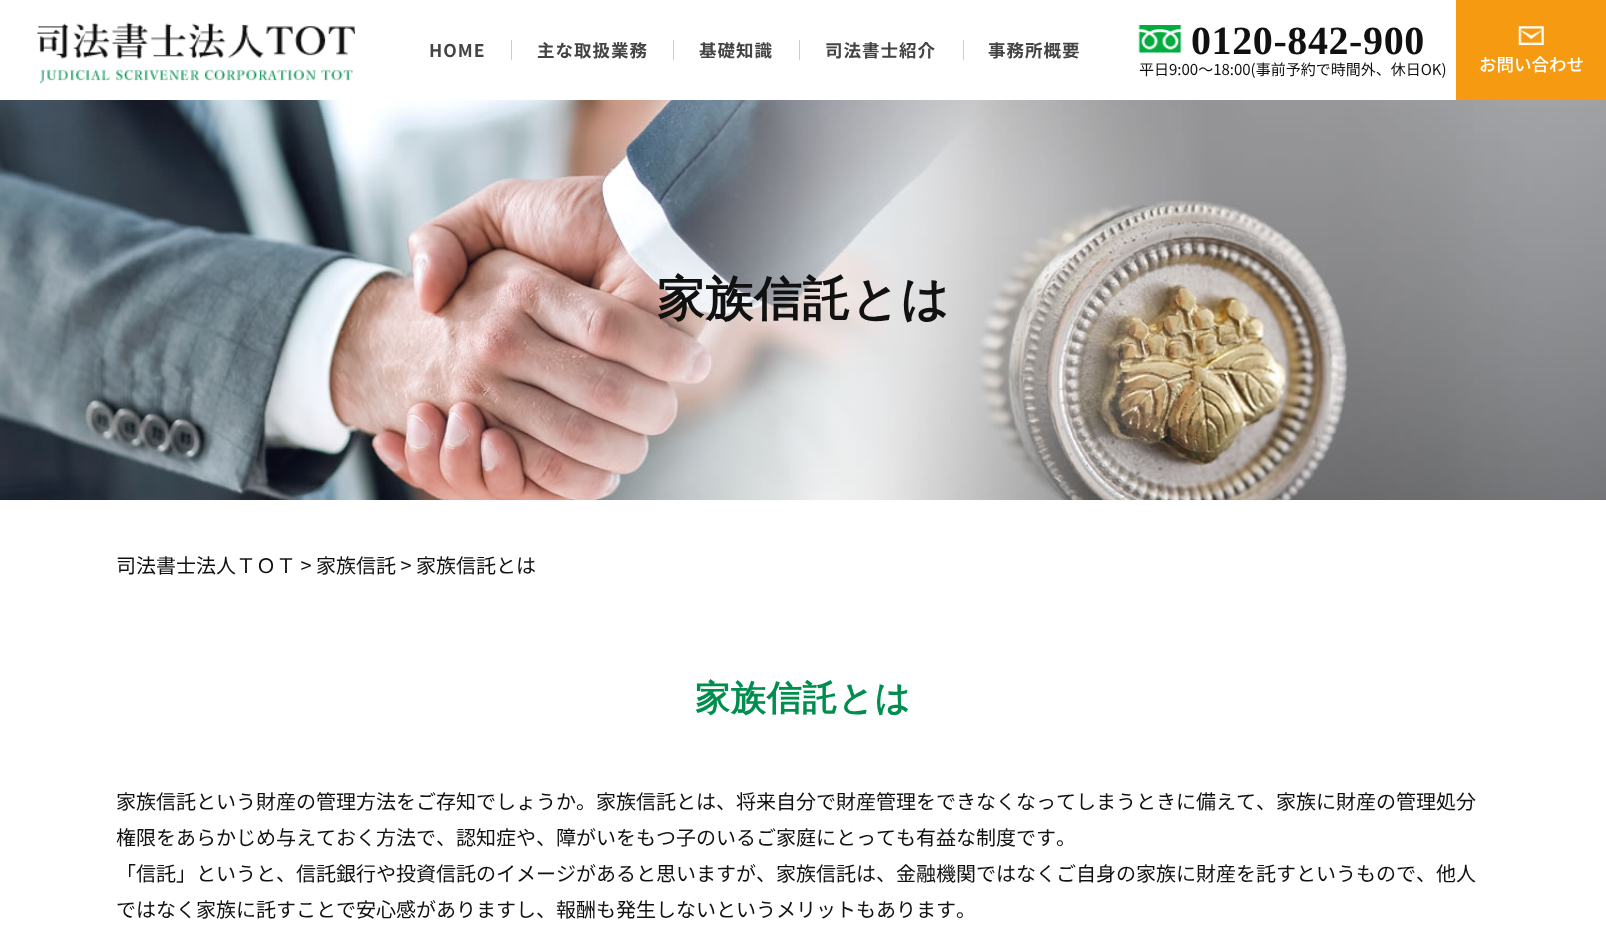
async function draw(canvas) {
	canvas.width = 1606;
	canvas.height = 928;
	const c = canvas.getContext('2d');
	c.miterLimit = 4;
	c.fontKerning = 'none';
	async function loadImage(src) {
		const img = new Image();
		img.src = src;
		await img.decode();
		return img;
	}

	c.fillStyle = '#fff';
	c.fillRect(0, 0, 1606, 928);
	c.letterSpacing = '1px';
	c.font = 'bold 17.5px Noto Sans JP';
	c.fillStyle = '#444';
	c.fillText('HOME', 429, 57);
	c.fillStyle = '#ccc';
	c.fillRect(511, 40, 1, 20);
	c.fillStyle = '#444';
	c.fillText('主な取扱業務', 537, 57);
	c.fillStyle = '#ccc';
	c.fillRect(673, 40, 1, 20);
	c.fillStyle = '#444';
	c.fillText('基礎知識', 699, 57);
	c.fillStyle = '#ccc';
	c.fillRect(799, 40, 1, 20);
	c.fillStyle = '#444';
	c.fillText('司法書士紹介', 825, 57);
	c.fillStyle = '#ccc';
	c.fillRect(963, 40, 1, 20);
	c.fillStyle = '#444';
	c.fillText('事務所概要', 988, 57);
	c.drawImage(await loadImage('img1.png'), 37, 22, 318, 62);
	c.drawImage(await loadImage('img2.png'), 1138, 25, 44, 28);
	c.letterSpacing = '0.6px';
	c.font = 'bold 40px Liberation Serif';
	c.fillStyle = '#111';
	c.fillText('0120-842-900', 1191, 54);
	c.letterSpacing = '0px';
	c.font = '15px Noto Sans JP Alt';
	c.fillText('平日9:00～18:00(事前予約で時間外、休日OK)', 1139, 75);
	c.fillStyle = '#f69b11';
	c.fillRect(1456, 0, 150, 100);
	c.drawImage(await loadImage('img3.png'), 1518, 26, 26, 19);
	c.font = '500 17.5px Noto Sans JP';
	c.fillStyle = '#fff';
	c.fillText('お問い合わせ', 1479, 71);
	c.drawImage(await loadImage('img4.png'), 0, 100, 1606, 400);
	c.letterSpacing = '1px';
	c.font = 'bold 47.5px WenQuanYi Zen Hei';
	c.fillStyle = '#111';
	c.fillText('家族信託とは', 657, 315);
	c.letterSpacing = '0px';
	c.font = '20px Noto Sans JP';
	c.fillText('司法書士法人ＴＯＴ > 家族信託 > 家族信託とは', 116, 573);
	c.letterSpacing = '0.75px';
	c.font = 'bold 35px WenQuanYi Zen Hei';
	c.fillStyle = '#008e4f';
	c.fillText('家族信託とは', 695, 710);
	c.letterSpacing = '0px';
	c.font = '20px Noto Sans JP';
	c.fillStyle = '#111';
	for (const [text, x, y] of [
		['家族信託という財産の管理方法をご存知でしょうか。家族信託とは、将来自分で財産管理をできなくなってしまうときに備えて、家族に財産の管理処分', 116, 809],
		['権限をあらかじめ与えておく方法で、認知症や、障がいをもつ子のいるご家庭にと', 116, 845],
		['っても有益な制度です。', 856, 845],
		['「信託」というと、信託銀行や投資信託のイメージがあると思いますが、家族信託は、金融機関ではなくご自身の家族に財産を託すというもので、他人', 116, 881],
		['ではなく家族に託すことで安心感がありますし、報酬も発生しないというメリットもあります。', 116, 917],
	]) {
		c.fillText(text, x, y);
	}
}

draw(document.querySelector('canvas'));
